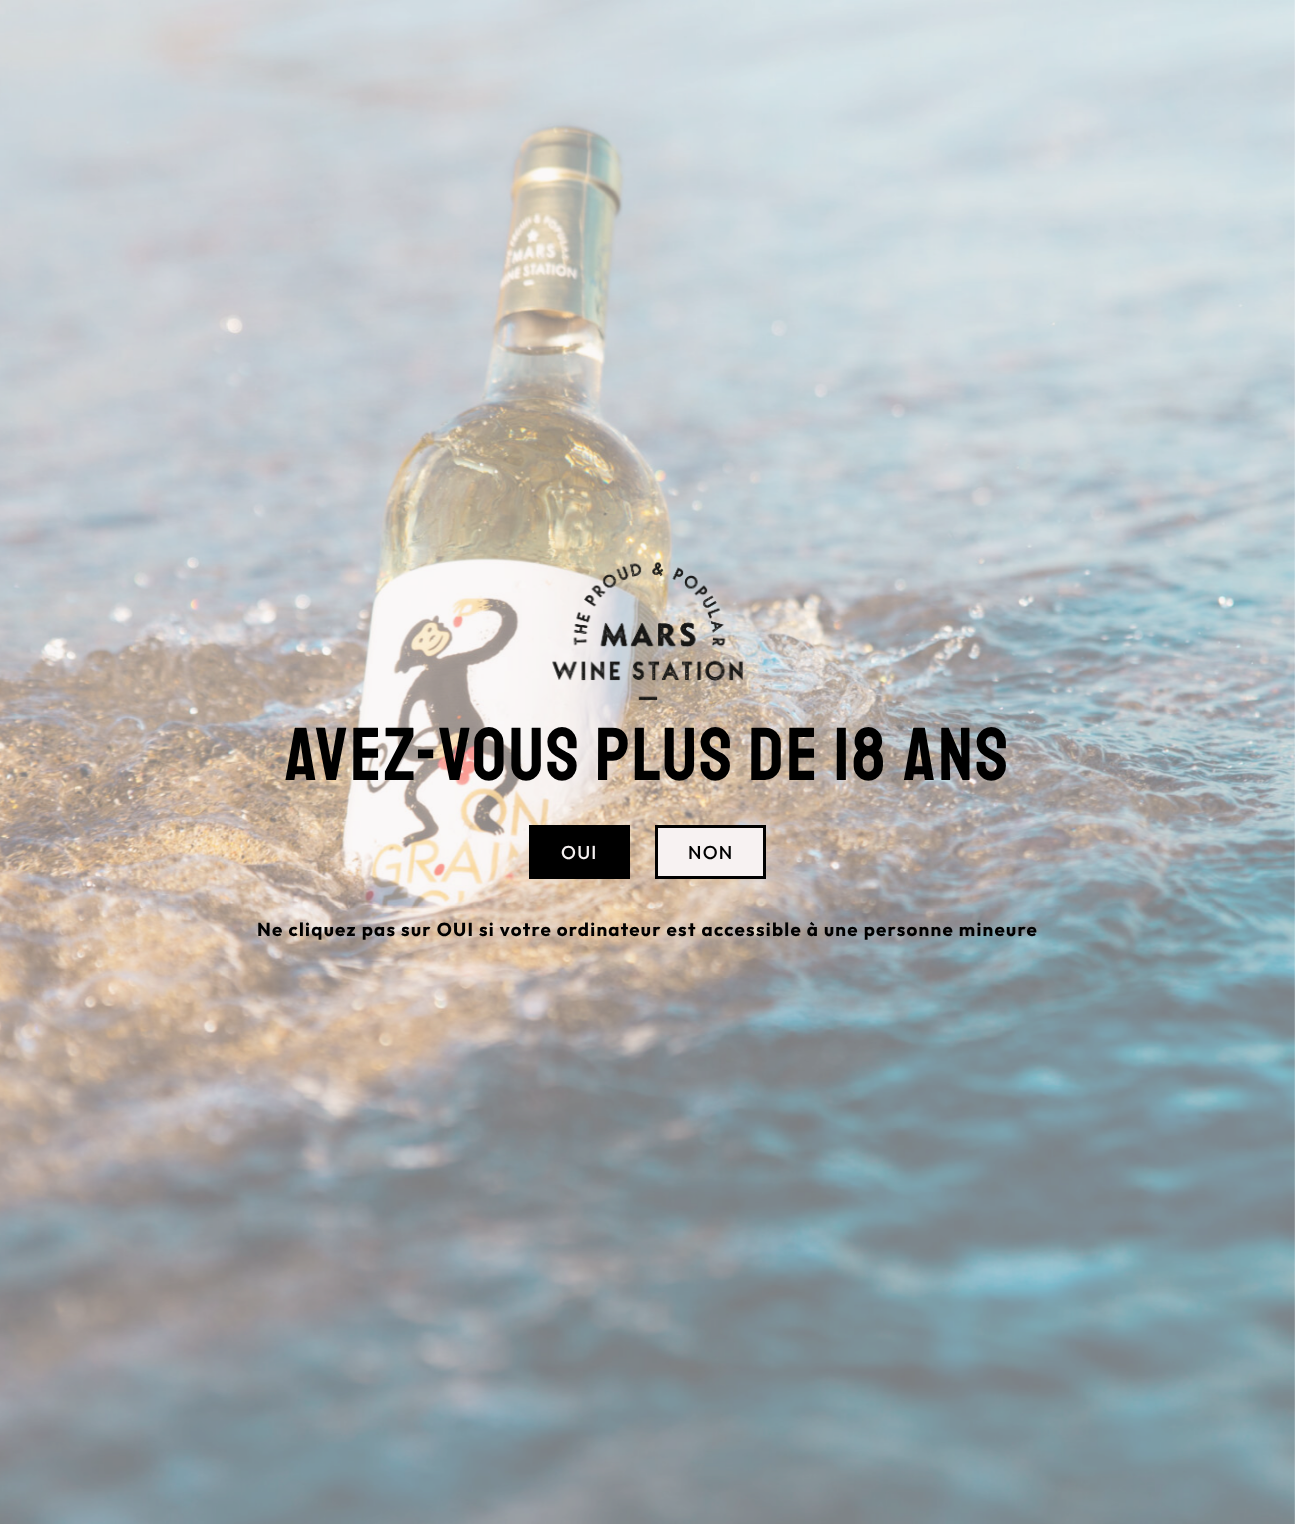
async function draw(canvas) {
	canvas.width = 1295;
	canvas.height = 1524;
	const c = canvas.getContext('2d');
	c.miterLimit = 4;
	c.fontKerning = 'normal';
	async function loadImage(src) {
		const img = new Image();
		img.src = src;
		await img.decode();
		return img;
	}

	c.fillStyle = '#fff';
	c.fillRect(0, 0, 1295, 1524);
	c.drawImage(await loadImage('img1.png'), 0, 0, 1295, 1524);
	c.drawImage(await loadImage('img2.png'), 552, 562, 191, 139);
	c.letterSpacing = '2.5px';
	c.font = '75px Staatliches';
	c.fillStyle = '#000';
	c.fillText('AVEZ-VOUS PLUS DE 18 ANS', 285, 780);
	c.fillRect(529, 825, 101, 54);
	c.letterSpacing = '1.25px';
	c.font = '500 18.75px Outfit';
	c.fillStyle = '#f7f2f2';
	c.fillText('OUI', 561, 859);
	c.beginPath();
	c.rect(656.5, 826.5, 108, 51);
	c.fill();
	c.strokeStyle = '#000';
	c.lineWidth = 3;
	c.stroke();
	c.fillStyle = '#000';
	c.fillText('NON', 688, 859);
	c.font = 'bold 18.75px Outfit';
	c.fillText('Ne cliquez pas sur OUI si votre ordinateur est accessible à une personne mineure', 257, 936);
}

draw(document.querySelector('canvas'));
